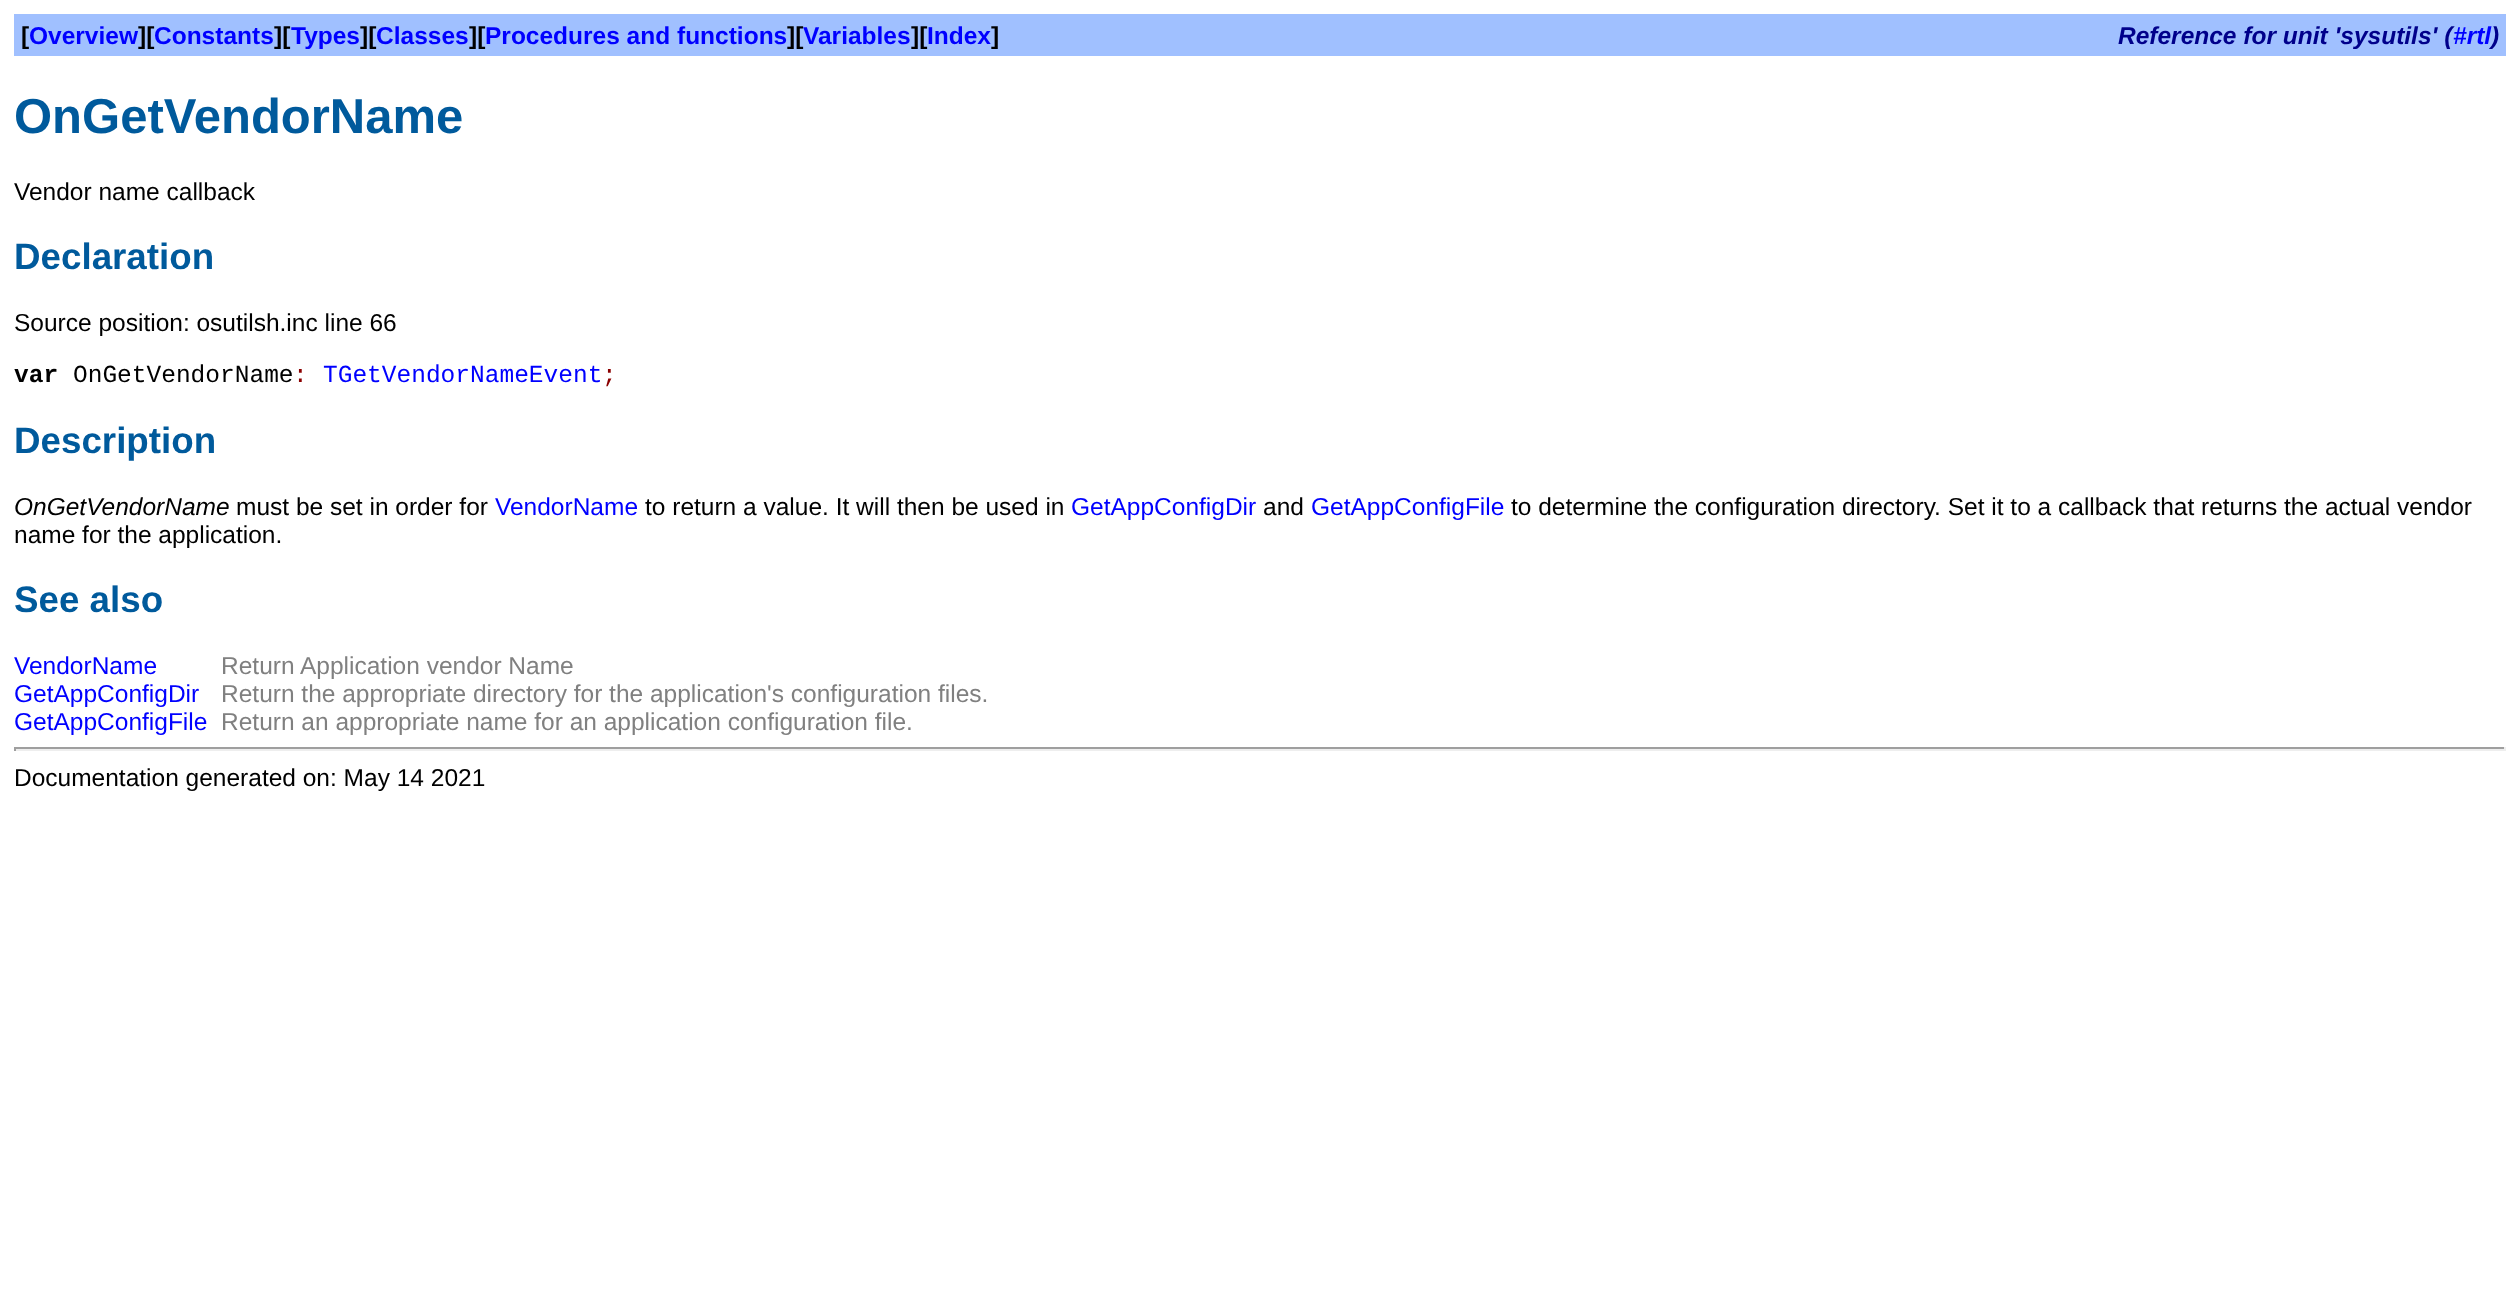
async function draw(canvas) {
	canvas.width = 2520;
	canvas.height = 1307;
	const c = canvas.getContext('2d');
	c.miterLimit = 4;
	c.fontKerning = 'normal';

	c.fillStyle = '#fff';
	c.fillRect(0, 0, 2520, 1307);
	c.fillStyle = '#a0c0ff';
	c.fillRect(14, 14, 2492, 42);
	c.font = 'bold 24.5px Liberation Sans';
	c.fillStyle = '#000';
	c.fillText('[', 21, 44);
	c.fillStyle = '#00f';
	c.fillText('Overview', 29, 44);
	c.fillStyle = '#000';
	c.fillText('][', 138, 44);
	c.fillStyle = '#00f';
	c.fillText('Constants', 154, 44);
	c.fillStyle = '#000';
	c.fillText('][', 274, 44);
	c.fillStyle = '#00f';
	c.fillText('Types', 291, 44);
	c.fillStyle = '#000';
	c.fillText('][', 360, 44);
	c.fillStyle = '#00f';
	c.fillText('Classes', 376, 44);
	c.fillStyle = '#000';
	c.fillText('][', 469, 44);
	c.fillStyle = '#00f';
	c.fillText('Procedures and functions', 485, 44);
	c.fillStyle = '#000';
	c.fillText('][', 787, 44);
	c.fillStyle = '#00f';
	c.fillText('Variables', 803, 44);
	c.fillStyle = '#000';
	c.fillText('][', 911, 44);
	c.fillStyle = '#00f';
	c.fillText('Index', 927, 44);
	c.fillStyle = '#000';
	c.fillText(']', 991, 44);
	c.font = 'italic bold 24.5px Liberation Sans';
	c.fillStyle = '#00008b';
	c.fillText('Reference for unit \'sysutils\' (', 2118, 44);
	c.fillStyle = '#00f';
	c.fillText('#rtl', 2453, 44);
	c.fillStyle = '#00008b';
	c.fillText(')', 2491, 44);
	c.font = 'bold 49px Liberation Sans';
	c.fillStyle = '#005a9c';
	c.fillText('OnGetVendorName', 14, 133);
	c.font = '24.5px Liberation Sans';
	c.fillStyle = '#000';
	c.fillText('Vendor name callback', 14, 200);
	c.font = 'bold 36.75px Liberation Sans';
	c.fillStyle = '#005a9c';
	c.fillText('Declaration', 14, 269);
	c.font = '24.5px Liberation Sans';
	c.fillStyle = '#000';
	c.fillText('Source position: osutilsh.inc line 66', 14, 331);
	c.font = 'bold 24.5px Liberation Mono';
	c.fillText('var', 14, 382);
	c.font = '24.5px Liberation Mono';
	c.fillText('OnGetVendorName', 73, 382);
	c.fillStyle = '#8b0000';
	c.fillText(':', 293, 382);
	c.fillStyle = '#00f';
	c.fillText('TGetVendorNameEvent', 323, 382);
	c.fillStyle = '#8b0000';
	c.fillText(';', 602, 382);
	c.font = 'bold 36.75px Liberation Sans';
	c.fillStyle = '#005a9c';
	c.fillText('Description', 14, 453);
	c.font = 'italic 24.5px Liberation Sans';
	c.fillStyle = '#000';
	c.fillText('OnGetVendorName', 14, 515);
	c.font = '24.5px Liberation Sans';
	c.fillText('must be set in order for', 236, 515);
	c.fillStyle = '#00f';
	c.fillText('VendorName', 495, 515);
	c.fillStyle = '#000';
	c.fillText('to return a value. It will then be used in', 645, 515);
	c.fillStyle = '#00f';
	c.fillText('GetAppConfigDir', 1071, 515);
	c.fillStyle = '#000';
	c.fillText('and', 1263, 515);
	c.fillStyle = '#00f';
	c.fillText('GetAppConfigFile', 1311, 515);
	c.fillStyle = '#000';
	c.fillText('to determine the configuration directory. Set it to a callback that returns the actual vendor', 1511, 515);
	c.fillText('name for the application.', 14, 543);
	c.font = 'bold 36.75px Liberation Sans';
	c.fillStyle = '#005a9c';
	c.fillText('See also', 14, 612);
	c.font = '24.5px Liberation Sans';
	c.fillStyle = '#00f';
	c.fillText('VendorName', 14, 674);
	c.fillStyle = '#808080';
	c.fillText('Return Application vendor Name', 221, 674);
	c.fillStyle = '#00f';
	c.fillText('GetAppConfigDir', 14, 702);
	c.fillStyle = '#808080';
	c.fillText('Return the appropriate directory for the application\'s configuration files.', 221, 702);
	c.fillStyle = '#00f';
	c.fillText('GetAppConfigFile', 14, 730);
	c.fillStyle = '#808080';
	c.fillText('Return an appropriate name for an application configuration file.', 221, 730);
	for (const [x, y, w, h, color] of [
		[14, 747, 2492, 2, '#9f9f9f'],
		[2504, 747, 2, 4, '#eee'],
		[14, 749, 2492, 2, '#eee'],
		[14, 747, 2, 4, '#9f9f9f'],
	]) {
		c.fillStyle = color;
		c.fillRect(x, y, w, h);
	}
	c.fillStyle = '#000';
	c.fillText('Documentation generated on: May 14 2021', 14, 786);
}

draw(document.querySelector('canvas'));
